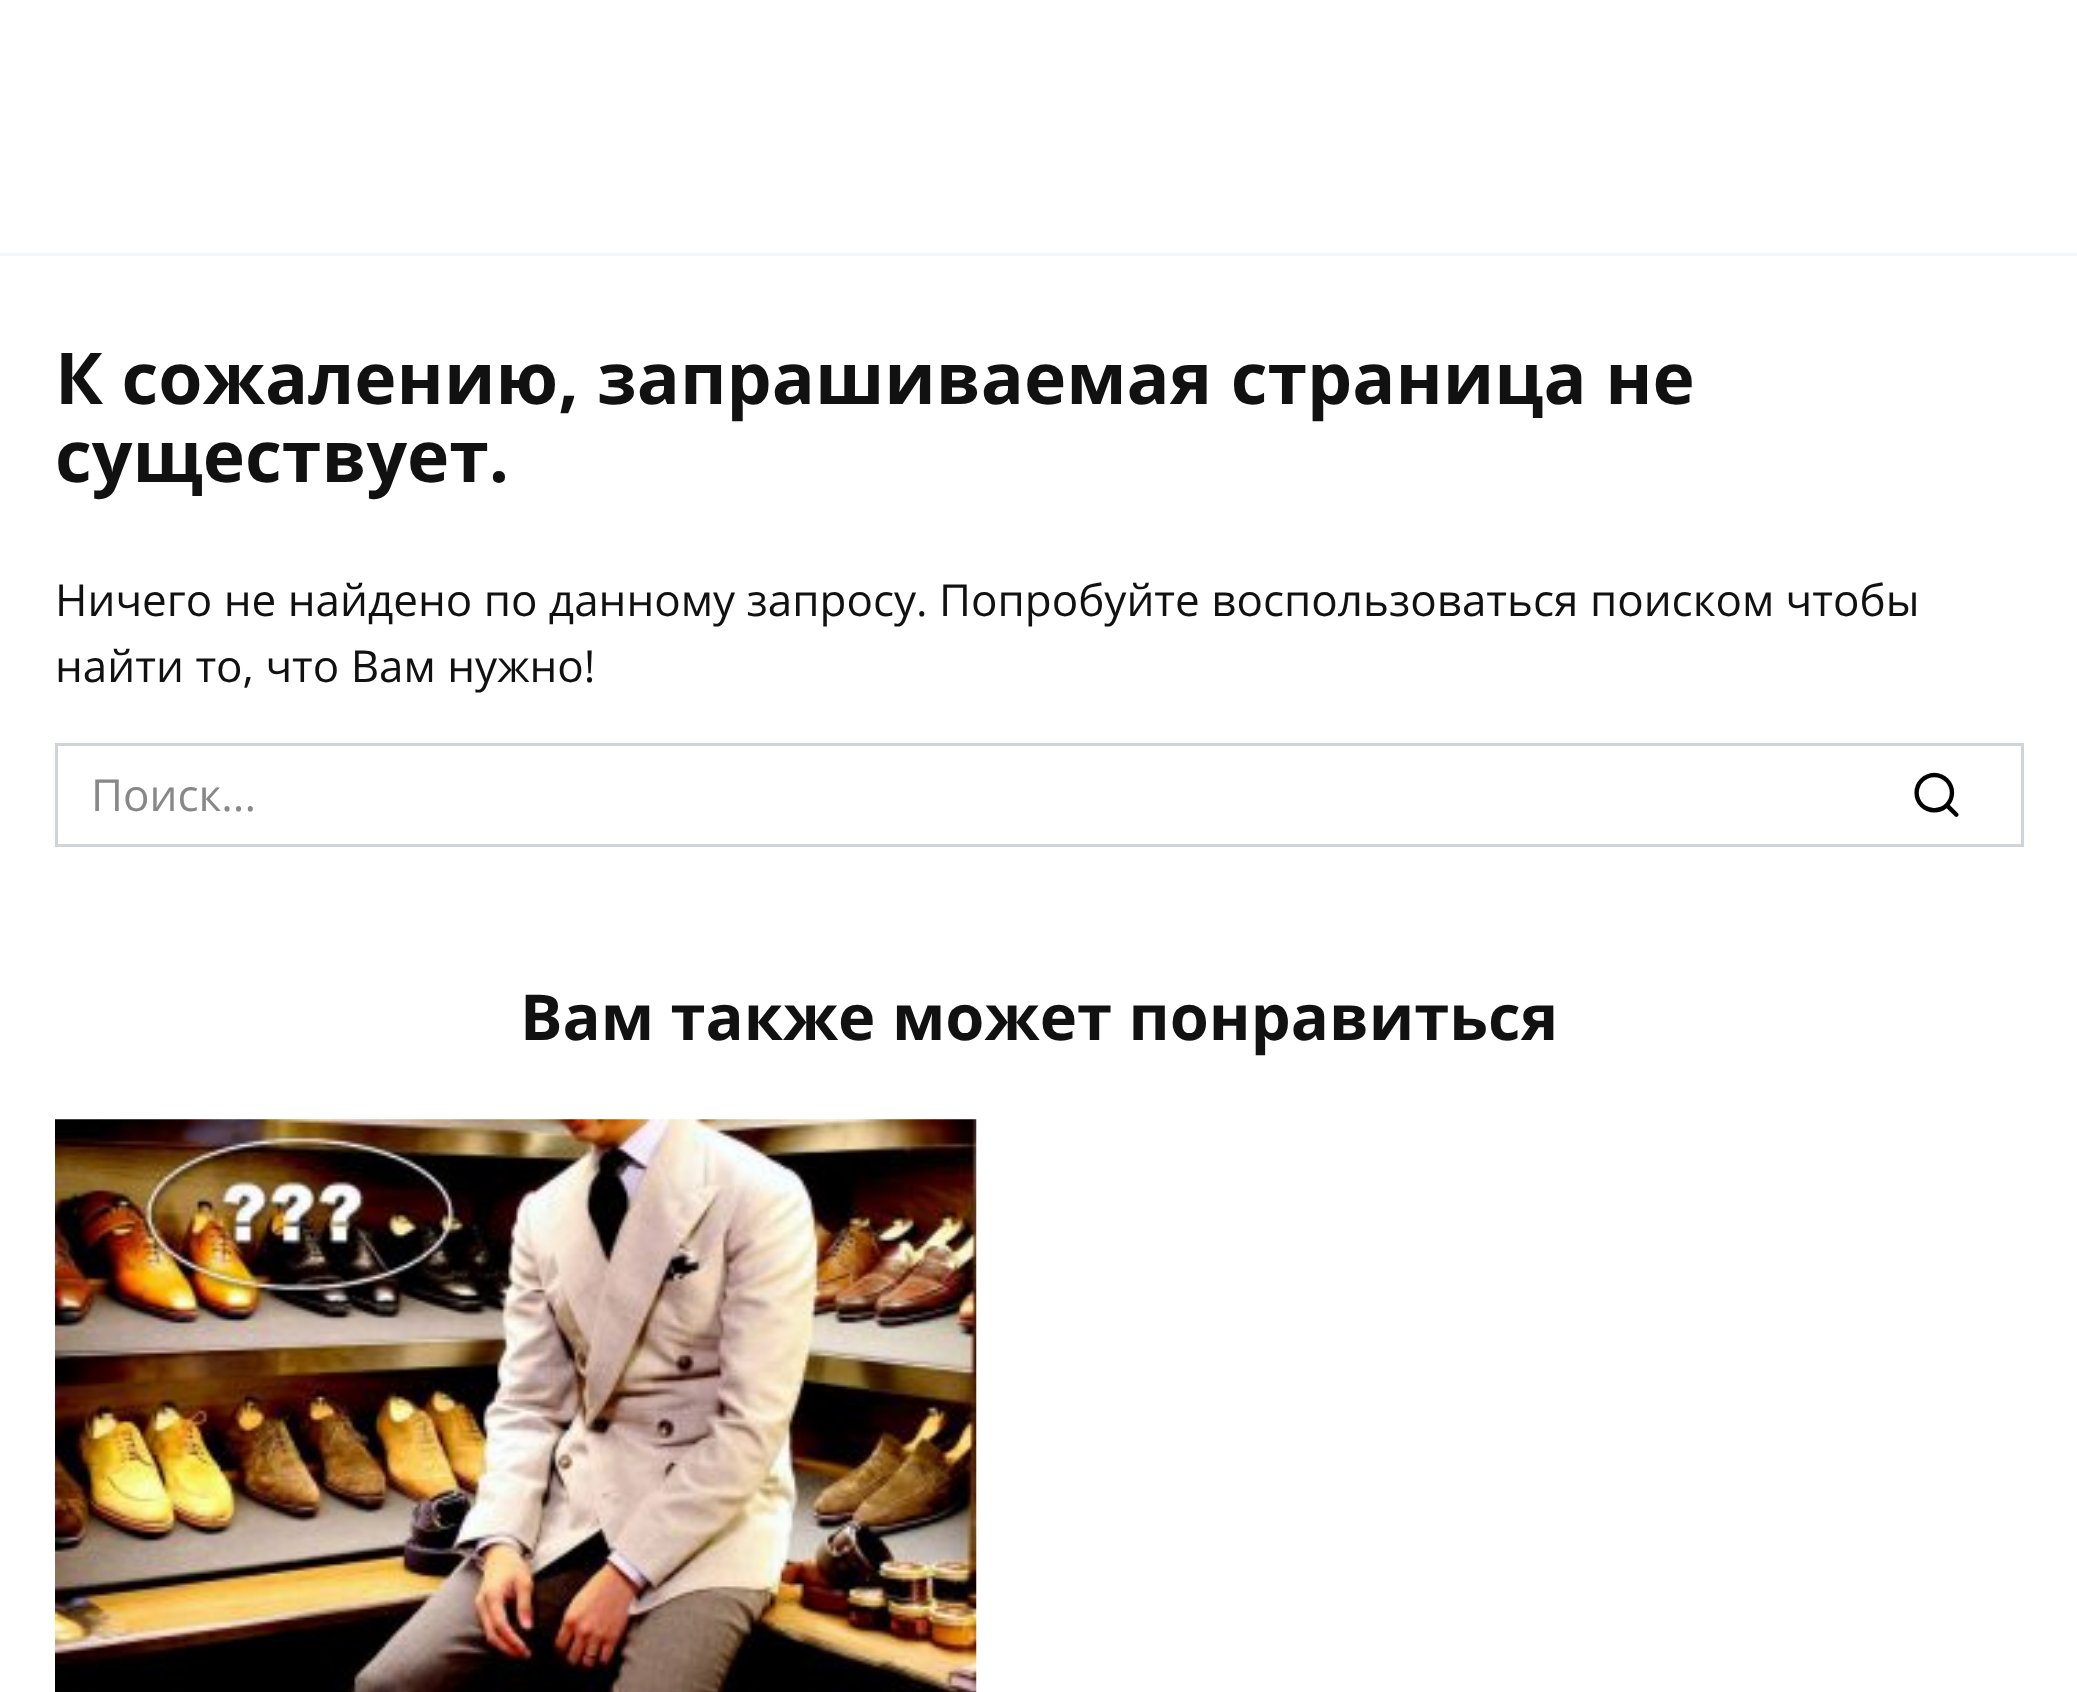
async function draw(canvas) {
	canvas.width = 2077;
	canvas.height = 1692;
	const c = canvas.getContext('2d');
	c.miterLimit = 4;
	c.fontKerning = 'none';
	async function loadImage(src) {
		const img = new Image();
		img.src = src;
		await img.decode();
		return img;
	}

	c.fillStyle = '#fff';
	c.fillRect(0, 0, 2077, 1692);
	c.fillStyle = '#f2f5f9';
	c.fillRect(0, 253, 2077, 3);
	c.font = 'bold 71.5px Open Sans';
	c.fillStyle = '#111';
	c.fillText('К сожалению, запрашиваемая страница не', 55, 404);
	c.fillText('существует.', 55, 482);
	c.font = '44px Open Sans';
	c.fillText('Ничего не найдено по данному запросу. Попробуйте воспользоваться поиском чтобы', 55, 616);
	c.fillText('найти то, что Вам нужно!', 55, 682);
	c.strokeStyle = '#ced4da';
	c.lineWidth = 3;
	c.strokeRect(56.5, 744.5, 1966, 101);
	c.fillStyle = '#888';
	c.fillText('Поиск...', 91, 811);
	c.font = '53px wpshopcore';
	c.fillStyle = '#000';
	c.fillText('🔍', 1910, 817);
	c.font = 'bold 63.25px Open Sans';
	c.fillStyle = '#111';
	c.fillText('Вам также может понравиться', 520, 1040);
	c.drawImage(await loadImage('img1.png'), 55, 1119, 922, 573);
}

draw(document.querySelector('canvas'));
